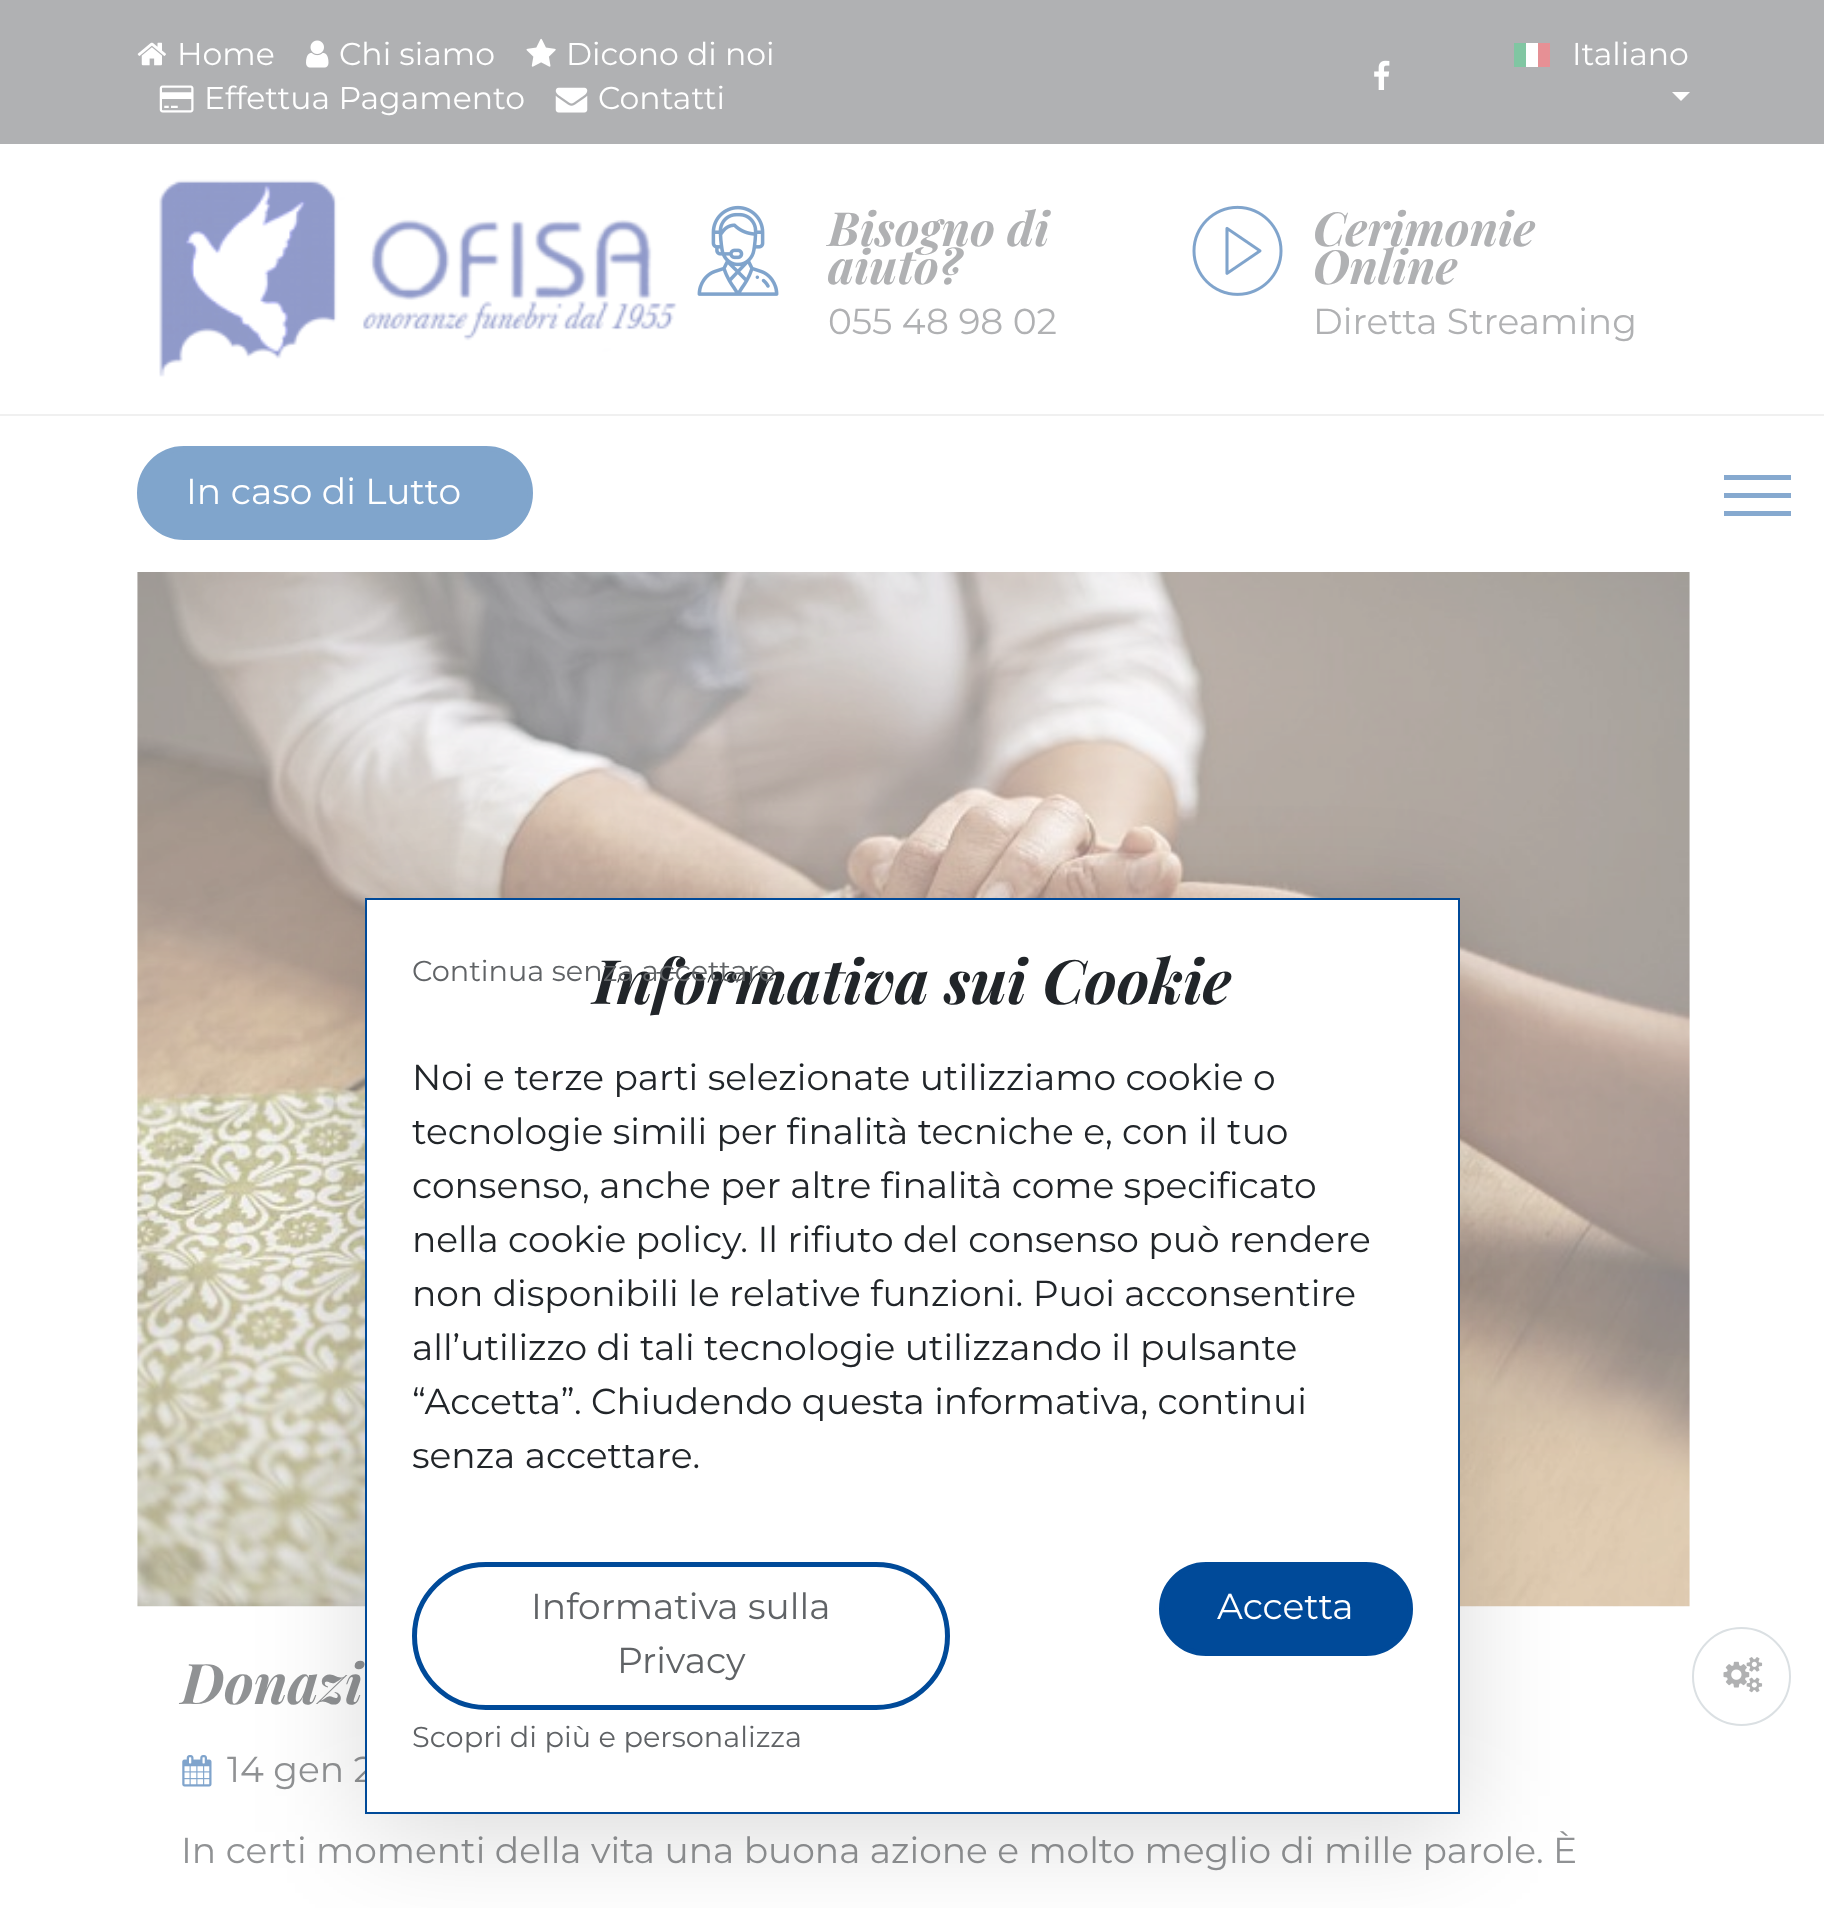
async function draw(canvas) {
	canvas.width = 1824;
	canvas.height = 1908;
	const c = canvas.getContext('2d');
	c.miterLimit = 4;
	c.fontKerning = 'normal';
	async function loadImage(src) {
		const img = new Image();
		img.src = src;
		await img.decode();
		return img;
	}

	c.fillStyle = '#fff';
	c.fillRect(0, 0, 1824, 1908);
	c.fillStyle = '#b0b1b3';
	c.fillRect(0, 0, 1824, 144);
	c.drawImage(await loadImage('img1.png'), 137, 42, 29, 24);
	c.font = '31.5px Montserrat';
	c.fillStyle = '#fff';
	c.fillText('Home', 177, 65);
	c.drawImage(await loadImage('img2.png'), 306, 40, 23, 28);
	c.fillText('Chi siamo', 339, 65);
	c.drawImage(await loadImage('img3.png'), 526, 38, 30, 29);
	c.fillText('Dicono di noi', 566, 65);
	c.drawImage(await loadImage('img4.png'), 159, 85, 35, 28);
	c.fillText('Effettua Pagamento', 204, 109);
	c.drawImage(await loadImage('img5.png'), 555, 87, 33, 26);
	c.fillText('Contatti', 598, 109);
	for (const [x, y, w, h, color] of [
		[1514, 43, 12, 24, '#80c6a2'],
		[1526, 43, 12, 24, '#fff'],
		[1538, 43, 12, 24, '#e69095'],
	]) {
		c.fillStyle = color;
		c.fillRect(x, y, w, h);
	}
	c.fillStyle = '#fff';
	c.fillText('Italiano', 1572, 65);
	c.beginPath();
	c.moveTo(1672, 92);
	c.lineTo(1690, 92);
	c.lineTo(1681, 101);
	c.closePath();
	c.fill();
	c.drawImage(await loadImage('img6.png'), 1374, 60, 16, 30);
	c.drawImage(await loadImage('img7.png'), 159, 179, 518, 198);
	c.drawImage(await loadImage('img8.png'), 697, 205, 82, 91);
	c.font = 'italic bold 47px Playfair Display';
	c.fillStyle = '#b0b1b3';
	c.fillText('Bisogno di', 828, 246);
	c.fillText('aiuto?', 828, 284);
	c.font = '36px Montserrat';
	c.fillText('055 48 98 02', 828, 334);
	c.drawImage(await loadImage('img9.png'), 1192, 205, 91, 91);
	c.font = 'italic bold 47px Playfair Display';
	c.fillText('Cerimonie', 1313, 246);
	c.fillText('Online', 1313, 284);
	c.font = '36px Montserrat';
	c.fillText('Diretta Streaming', 1313, 334);
	c.fillStyle = '#f0f0f0';
	c.fillRect(0, 414, 1824, 2);
	c.fillStyle = '#80a5cc';
	c.beginPath();
	c.roundRect(139.5, 448.5, 391, 89, 44.5);
	c.fill();
	c.strokeStyle = '#80a5cc';
	c.lineWidth = 5;
	c.stroke();
	c.fillStyle = '#fff';
	c.fillText('In caso di Lutto', 186, 504);
	for (const [x, y, w, h, color] of [
		[1724, 475, 67, 5, '#86a9cf'],
		[1724, 511, 67, 5, '#86a9cf'],
		[1724, 493, 67, 5, '#86a9cf'],
	]) {
		c.fillStyle = color;
		c.fillRect(x, y, w, h);
	}
	c.drawImage(await loadImage('img10.png'), 137, 572, 1553, 1035);
	c.font = 'italic bold 56px Playfair Display';
	c.fillStyle = '#909294';
	c.fillText('Donazi', 181, 1704);
	c.drawImage(await loadImage('img11.png'), 182, 1755, 30, 32);
	c.font = '36px Montserrat';
	c.fillText('14 gen 2', 227, 1782);
	c.fillText('In certi momenti della vita una buona azione e molto meglio di mille parole. È', 181, 1863);
	c.fillStyle = '#00000026';
	c.filter = 'blur(54px)';
	c.beginPath();
	c.rect(365, 916, 1095, 916);
	c.fill();
	c.filter = 'none';
	c.fillStyle = '#fff';
	c.beginPath();
	c.rect(366, 899, 1093, 914);
	c.fill();
	c.strokeStyle = '#004a99';
	c.lineWidth = 2;
	c.stroke();
	c.font = 'italic bold 61.25px Playfair Display';
	c.fillStyle = '#212529';
	c.fillText('Informativa sui Cookie', 593, 1004);
	c.font = '28.75px Montserrat';
	c.fillStyle = '#606366';
	c.fillText('Continua senza accettare', 412, 981);
	c.font = '36px Montserrat';
	c.fillStyle = '#212529';
	for (const [text, x, y] of [
		['Noi e terze parti selezionate utilizziamo cookie o', 412, 1090],
		['tecnologie simili per finalità tecniche e, con il tuo', 412, 1144],
		['consenso, anche per altre finalità come specificato', 412, 1198],
		['nella cookie policy. Il rifiuto del consenso può rendere', 412, 1252],
		['non disponibili le relative funzioni. Puoi acconsentire', 412, 1306],
		['all’utilizzo di tali tecnologie utilizzando il pulsante', 412, 1360],
		['“Accetta”. Chiudendo questa informativa, continui', 412, 1414],
		['senza accettare.', 412, 1468],
	]) {
		c.fillText(text, x, y);
	}
	c.beginPath();
	c.roundRect(414.5, 1564.5, 533, 143, 71.5);
	c.lineWidth = 5;
	c.stroke();
	c.fillStyle = '#606366';
	c.fillText('Informativa sulla', 531, 1619);
	c.fillText('Privacy', 617, 1673);
	c.font = '28.75px Montserrat';
	c.fillText('Scopri di più e personalizza', 412, 1747);
	c.fillStyle = '#004a99';
	c.beginPath();
	c.roundRect(1161.5, 1564.5, 249, 89, 44.5);
	c.fill();
	c.stroke();
	c.font = '36px Montserrat';
	c.fillStyle = '#fff';
	c.fillText('Accetta', 1217, 1619);
	c.beginPath();
	c.arc(1741.5, 1676.5, 48.5, 0, 2 * Math.PI);
	c.strokeStyle = '#dbe0e3';
	c.lineWidth = 2;
	c.stroke();
	c.drawImage(await loadImage('img12.png'), 1723, 1657, 40, 36);
}

draw(document.querySelector('canvas'));
